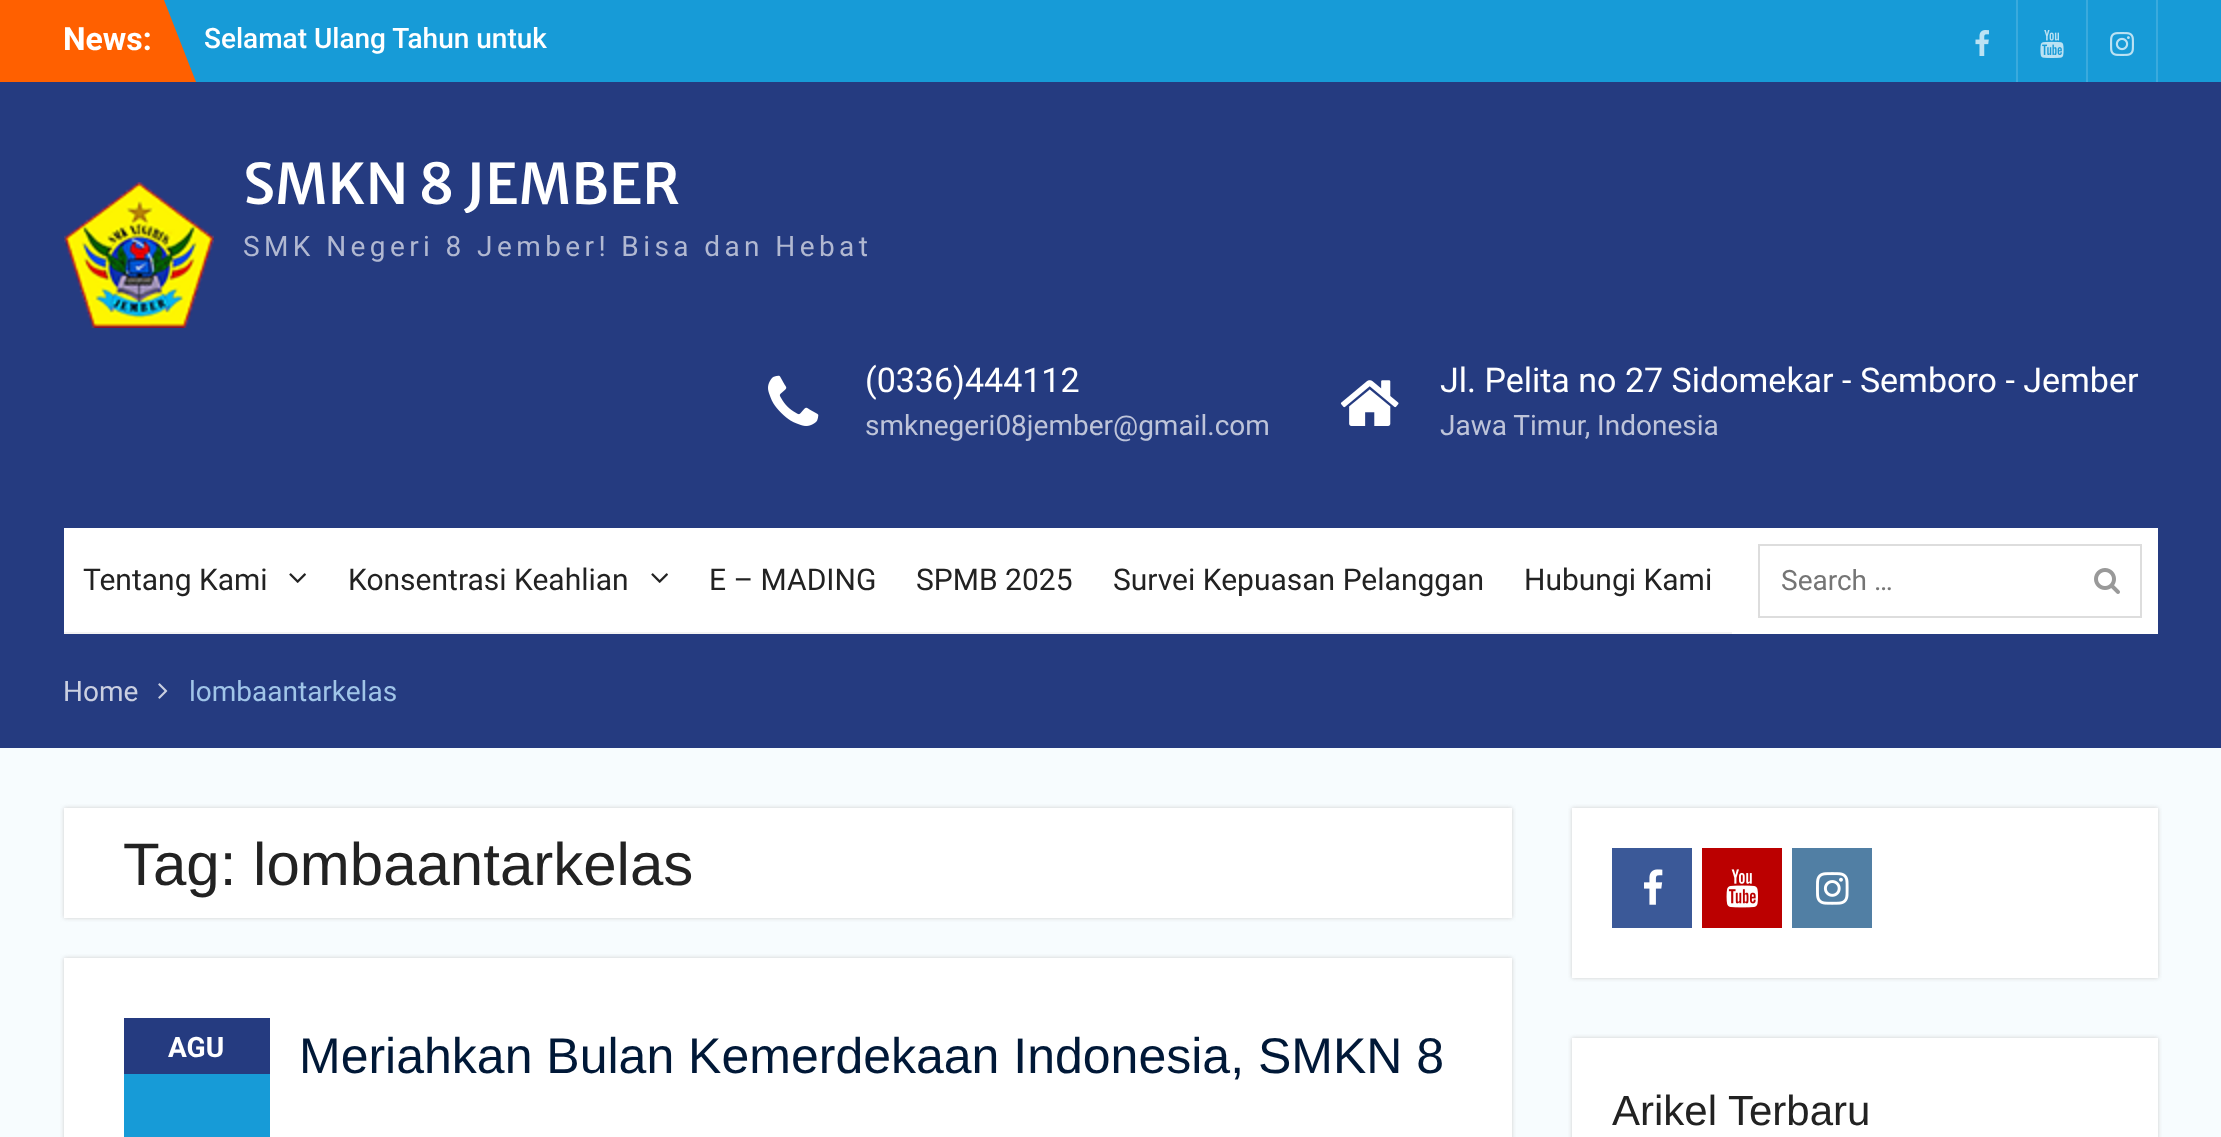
async function draw(canvas) {
	canvas.width = 2221;
	canvas.height = 1137;
	const c = canvas.getContext('2d');
	c.miterLimit = 4;
	c.fontKerning = 'normal';
	async function loadImage(src) {
		const img = new Image();
		img.src = src;
		await img.decode();
		return img;
	}

	c.fillStyle = '#f7fcfe';
	c.fillRect(0, 0, 2221, 1137);
	c.fillStyle = '#179bd7';
	c.fillRect(164, 0, 2057, 82);
	c.fillStyle = '#ff6000';
	c.fillRect(0, 0, 164, 82);
	c.font = 'bold 32px Roboto';
	c.fillStyle = '#fff';
	c.fillText('News:', 63, 50);
	c.fillStyle = '#ff6000';
	c.beginPath();
	c.moveTo(164, 82);
	c.lineTo(164, 0);
	c.lineTo(196, 82);
	c.closePath();
	c.fill();
	c.font = '500 28px Roboto';
	c.fillStyle = '#fff';
	c.fillText('Selamat Ulang Tahun untuk', 204, 48);
	c.fillStyle = '#3aaadd';
	c.fillRect(2016, 0, 2, 82);
	c.drawImage(await loadImage('img1.png'), 1975, 30, 14, 26);
	c.fillRect(2086, 0, 2, 82);
	c.drawImage(await loadImage('img2.png'), 2040, 30, 24, 28);
	c.fillRect(2156, 0, 2, 82);
	c.drawImage(await loadImage('img3.png'), 2110, 32, 24, 24);
	c.fillStyle = '#253b80';
	c.fillRect(0, 82, 2221, 666);
	c.drawImage(await loadImage('img4.png'), 64, 182, 150, 146);
	c.font = '500 56px Merriweather Sans';
	c.fillStyle = '#fff';
	c.fillText('SMKN 8 JEMBER', 243, 204);
	c.letterSpacing = '4.4px';
	c.font = '28px Roboto';
	c.fillStyle = '#b1b8d1';
	c.fillText('SMK Negeri 8 Jember! Bisa dan Hebat', 243, 256);
	c.drawImage(await loadImage('img5.png'), 768, 375, 51, 51);
	c.letterSpacing = '0px';
	c.font = '34px Roboto';
	c.fillStyle = '#fff';
	c.fillText('(0336)444112', 865, 392);
	c.font = '28px Roboto';
	c.fillStyle = '#bec4d9';
	c.fillText('smknegeri08jember@gmail.com', 865, 435);
	c.drawImage(await loadImage('img6.png'), 1340, 380, 59, 46);
	c.font = '34px Roboto';
	c.fillStyle = '#fff';
	c.fillText('Jl. Pelita no 27 Sidomekar - Semboro - Jember', 1440, 392);
	c.font = '28px Roboto';
	c.fillStyle = '#bec4d9';
	c.fillText('Jawa Timur, Indonesia', 1440, 435);
	c.fillStyle = '#fff';
	c.fillRect(64, 528, 2094, 106);
	c.fillStyle = '#f3f3f3';
	c.fillRect(64, 632, 1668, 2);
	c.font = '30px Roboto';
	c.fillStyle = '#222';
	c.fillText('Tentang Kami', 83, 590);
	c.drawImage(await loadImage('img7.png'), 289, 573, 17, 10);
	c.fillText('Konsentrasi Keahlian', 348, 590);
	c.drawImage(await loadImage('img7.png'), 651, 573, 17, 10);
	for (const [text, x, y] of [
		['E – MADING', 709, 590],
		['SPMB 2025', 916, 590],
		['Survei Kepuasan Pelanggan', 1113, 590],
		['Hubungi Kami', 1524, 590],
	]) {
		c.fillText(text, x, y);
	}
	c.strokeStyle = '#ddd';
	c.lineWidth = 2;
	c.strokeRect(1759, 545, 382, 72);
	c.font = '28px Roboto';
	c.fillStyle = '#757575';
	c.fillText('Search …', 1781, 590);
	c.drawImage(await loadImage('img8.png'), 2094, 568, 26, 26);
	c.fillStyle = '#cbd0e1';
	c.fillText('Home', 63, 701);
	c.drawImage(await loadImage('img9.png'), 158, 683, 10, 16);
	c.fillStyle = '#a0c5e8';
	c.fillText('lombaantarkelas', 189, 701);
	c.fillStyle = '#cfcfcf';
	c.filter = 'blur(2px)';
	c.beginPath();
	c.rect(64, 808, 1448, 110);
	c.fill();
	c.filter = 'none';
	c.fillStyle = '#fff';
	c.fillRect(64, 808, 1448, 110);
	c.font = '60px Liberation Sans';
	c.fillStyle = '#222';
	c.fillText('Tag: lombaantarkelas', 123, 885);
	c.fillStyle = '#cfcfcf';
	c.filter = 'blur(2px)';
	c.beginPath();
	c.rect(64, 958, 1448, 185);
	c.fill();
	c.filter = 'none';
	c.fillStyle = '#fff';
	c.fillRect(64, 958, 1448, 179);
	c.fillStyle = '#253b80';
	c.fillRect(124, 1018, 146, 56);
	c.font = 'bold 28px Roboto';
	c.fillStyle = '#fff';
	c.fillText('AGU', 168, 1057);
	c.fillStyle = '#179bd7';
	c.fillRect(124, 1074, 146, 63);
	c.font = '50px Liberation Sans';
	c.fillStyle = '#001837';
	c.fillText('Meriahkan Bulan Kemerdekaan Indonesia, SMKN 8', 299, 1073);
	c.fillStyle = '#cfcfcf';
	c.filter = 'blur(2px)';
	c.beginPath();
	c.rect(1572, 808, 586, 170);
	c.fill();
	c.filter = 'none';
	c.fillStyle = '#fff';
	c.fillRect(1572, 808, 586, 170);
	c.fillStyle = '#3b5998';
	c.fillRect(1612, 848, 80, 80);
	c.drawImage(await loadImage('img10.png'), 1644, 869, 19, 36);
	c.fillStyle = '#b00';
	c.fillRect(1702, 848, 80, 80);
	c.drawImage(await loadImage('img11.png'), 1726, 869, 32, 39);
	c.fillStyle = '#517fa4';
	c.fillRect(1792, 848, 80, 80);
	c.drawImage(await loadImage('img12.png'), 1816, 872, 33, 33);
	c.fillStyle = '#cfcfcf';
	c.filter = 'blur(2px)';
	c.beginPath();
	c.rect(1572, 1038, 586, 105);
	c.fill();
	c.filter = 'none';
	c.fillStyle = '#fff';
	c.fillRect(1572, 1038, 586, 99);
	c.font = '42px Liberation Sans';
	c.fillStyle = '#222';
	c.fillText('Arikel Terbaru', 1612, 1125);
}

draw(document.querySelector('canvas'));
